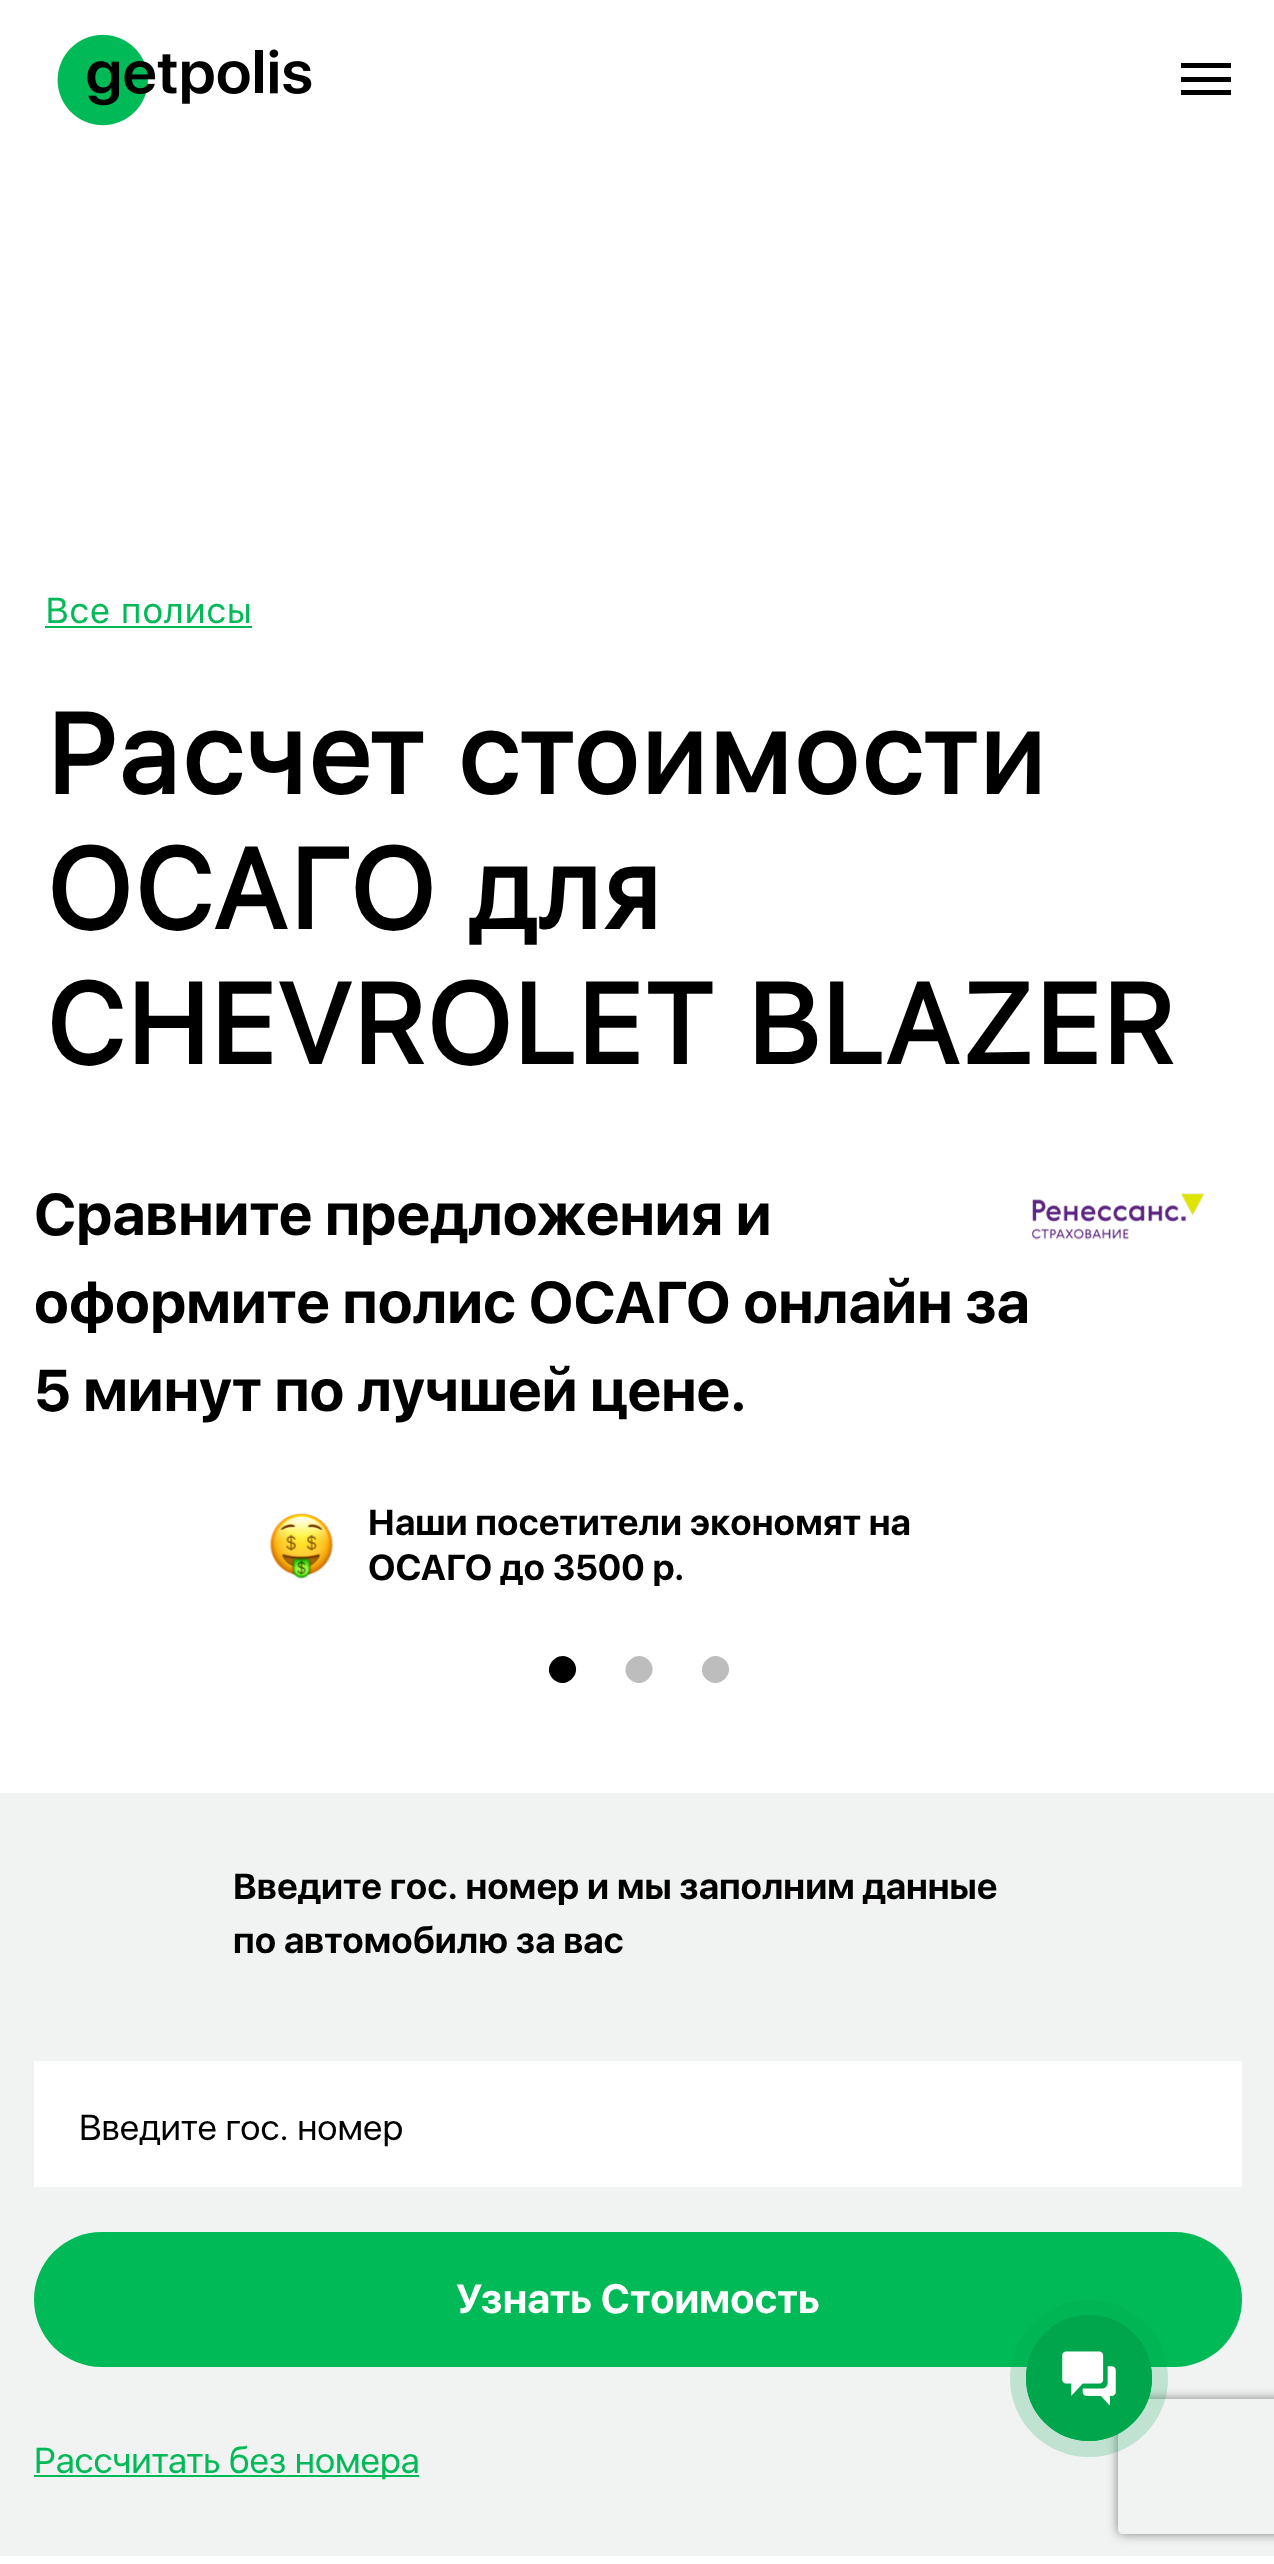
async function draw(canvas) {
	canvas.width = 1274;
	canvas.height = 2564;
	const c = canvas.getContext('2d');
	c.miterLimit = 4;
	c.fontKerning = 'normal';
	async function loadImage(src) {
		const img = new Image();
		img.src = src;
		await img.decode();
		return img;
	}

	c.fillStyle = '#fff';
	c.fillRect(0, 0, 1274, 2564);
	c.drawImage(await loadImage('img1.png'), 57, 34, 255, 92);
	for (const [x, y, w, h, color] of [
		[1181, 63, 50, 5, '#000'],
		[1181, 77, 50, 5, '#000'],
		[1181, 90, 50, 5, '#000'],
	]) {
		c.fillStyle = color;
		c.fillRect(x, y, w, h);
	}
	c.font = '36px SF Pro Text';
	c.fillStyle = '#00ba57';
	c.fillText('Все полисы', 45, 623);
	c.fillRect(45, 626, 207, 2);
	c.font = 'bold 112.5px SF Pro Text';
	c.fillStyle = '#000';
	for (const [text, x, y] of [
		['Расчет стоимости', 45, 794],
		['ОСАГО для', 45, 929],
		['CHEVROLET BLAZER', 45, 1064],
	]) {
		c.fillText(text, x, y);
	}
	c.font = 'bold 58.5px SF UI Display';
	for (const [text, x, y] of [
		['Сравните предложения и', 34, 1235],
		['оформите полис ОСАГО онлайн за', 34, 1323],
		['5 минут по лучшей цене.', 34, 1411],
	]) {
		c.fillText(text, x, y);
	}
	c.drawImage(await loadImage('img2.png'), 1032, 1193, 172, 47);
	c.drawImage(await loadImage('img3.png'), 269, 1513, 65, 66);
	c.font = 'bold 36px SF UI Display';
	c.fillText('Наши посетители экономят на', 368, 1535);
	c.fillText('ОСАГО до 3500 р.', 368, 1580);
	c.beginPath();
	c.moveTo(553, 1679);
	c.bezierCurveTo(540.5, 1666.5, 559.5, 1647.5, 572, 1660);
	c.bezierCurveTo(584.5, 1672.5, 565.5, 1691.5, 553, 1679);
	c.closePath();
	c.fill();
	c.fillStyle = '#bdbdbd';
	c.beginPath();
	c.moveTo(629.5, 1679);
	c.bezierCurveTo(617, 1666.5, 636, 1647.5, 648.5, 1660);
	c.bezierCurveTo(661, 1672.5, 642, 1691.5, 629.5, 1679);
	c.closePath();
	c.fill();
	c.beginPath();
	c.moveTo(706, 1679);
	c.bezierCurveTo(693.5, 1666.5, 712.5, 1647.5, 725, 1660);
	c.bezierCurveTo(737.5, 1672.5, 718.5, 1691.5, 706, 1679);
	c.closePath();
	c.fill();
	c.fillStyle = '#f1f2f2';
	c.fillRect(0, 1793, 1274, 763);
	c.fillStyle = '#000';
	c.fillText('Введите гос. номер и мы заполним данные', 233, 1899);
	c.fillText('по автомобилю за вас', 233, 1953);
	c.fillStyle = '#fff';
	c.fillRect(34, 2061, 1208, 126);
	c.font = '36px SF UI Display';
	c.fillStyle = '#000';
	c.fillText('Введите гос. номер', 79, 2140);
	c.fillStyle = '#00ba57';
	c.beginPath();
	c.roundRect(34, 2232, 1208, 135, 67.5);
	c.fill();
	c.font = 'bold 40.5px SF UI Display';
	c.fillStyle = '#fff';
	c.fillText('Узнать Стоимость', 456, 2313);
	c.fillStyle = '#00ba57';
	c.fillRect(34, 2475, 385, 2);
	c.font = '36px SF UI Display';
	c.fillText('Рассчитать без номера', 34, 2473);
	c.save();
	c.beginPath();
	c.moveTo(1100, 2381);
	c.lineTo(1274, 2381);
	c.lineTo(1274, 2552);
	c.lineTo(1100, 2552);
	c.closePath();
	c.moveTo(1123, 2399);
	c.lineTo(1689, 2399);
	c.bezierCurveTo(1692, 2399, 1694, 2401, 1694, 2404);
	c.lineTo(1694, 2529);
	c.bezierCurveTo(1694, 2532, 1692, 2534, 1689, 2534);
	c.lineTo(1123, 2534);
	c.bezierCurveTo(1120, 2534, 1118, 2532, 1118, 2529);
	c.lineTo(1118, 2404);
	c.bezierCurveTo(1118, 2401, 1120, 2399, 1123, 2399);
	c.closePath();
	c.clip('evenodd');
	c.fillStyle = '#808080';
	c.filter = 'blur(5.5px)';
	c.beginPath();
	c.roundRect(1118, 2399, 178, 135, 5);
	c.fill();
	c.filter = 'none';
	c.restore();
	c.fillStyle = '#00a64c33';
	c.beginPath();
	c.roundRect(1010, 2300, 158, 157, 78.5);
	c.fill();
	c.beginPath();
	c.arc(1089, 2378, 62, 0, 2 * Math.PI);
	c.strokeStyle = '#00a64c';
	c.lineWidth = 2;
	c.stroke();
	c.fillStyle = '#00a64c';
	c.beginPath();
	c.arc(1089, 2378, 63, 0, 2 * Math.PI);
	c.fill();
	c.drawImage(await loadImage('img4.png'), 1062, 2351, 54, 54);
}

draw(document.querySelector('canvas'));
